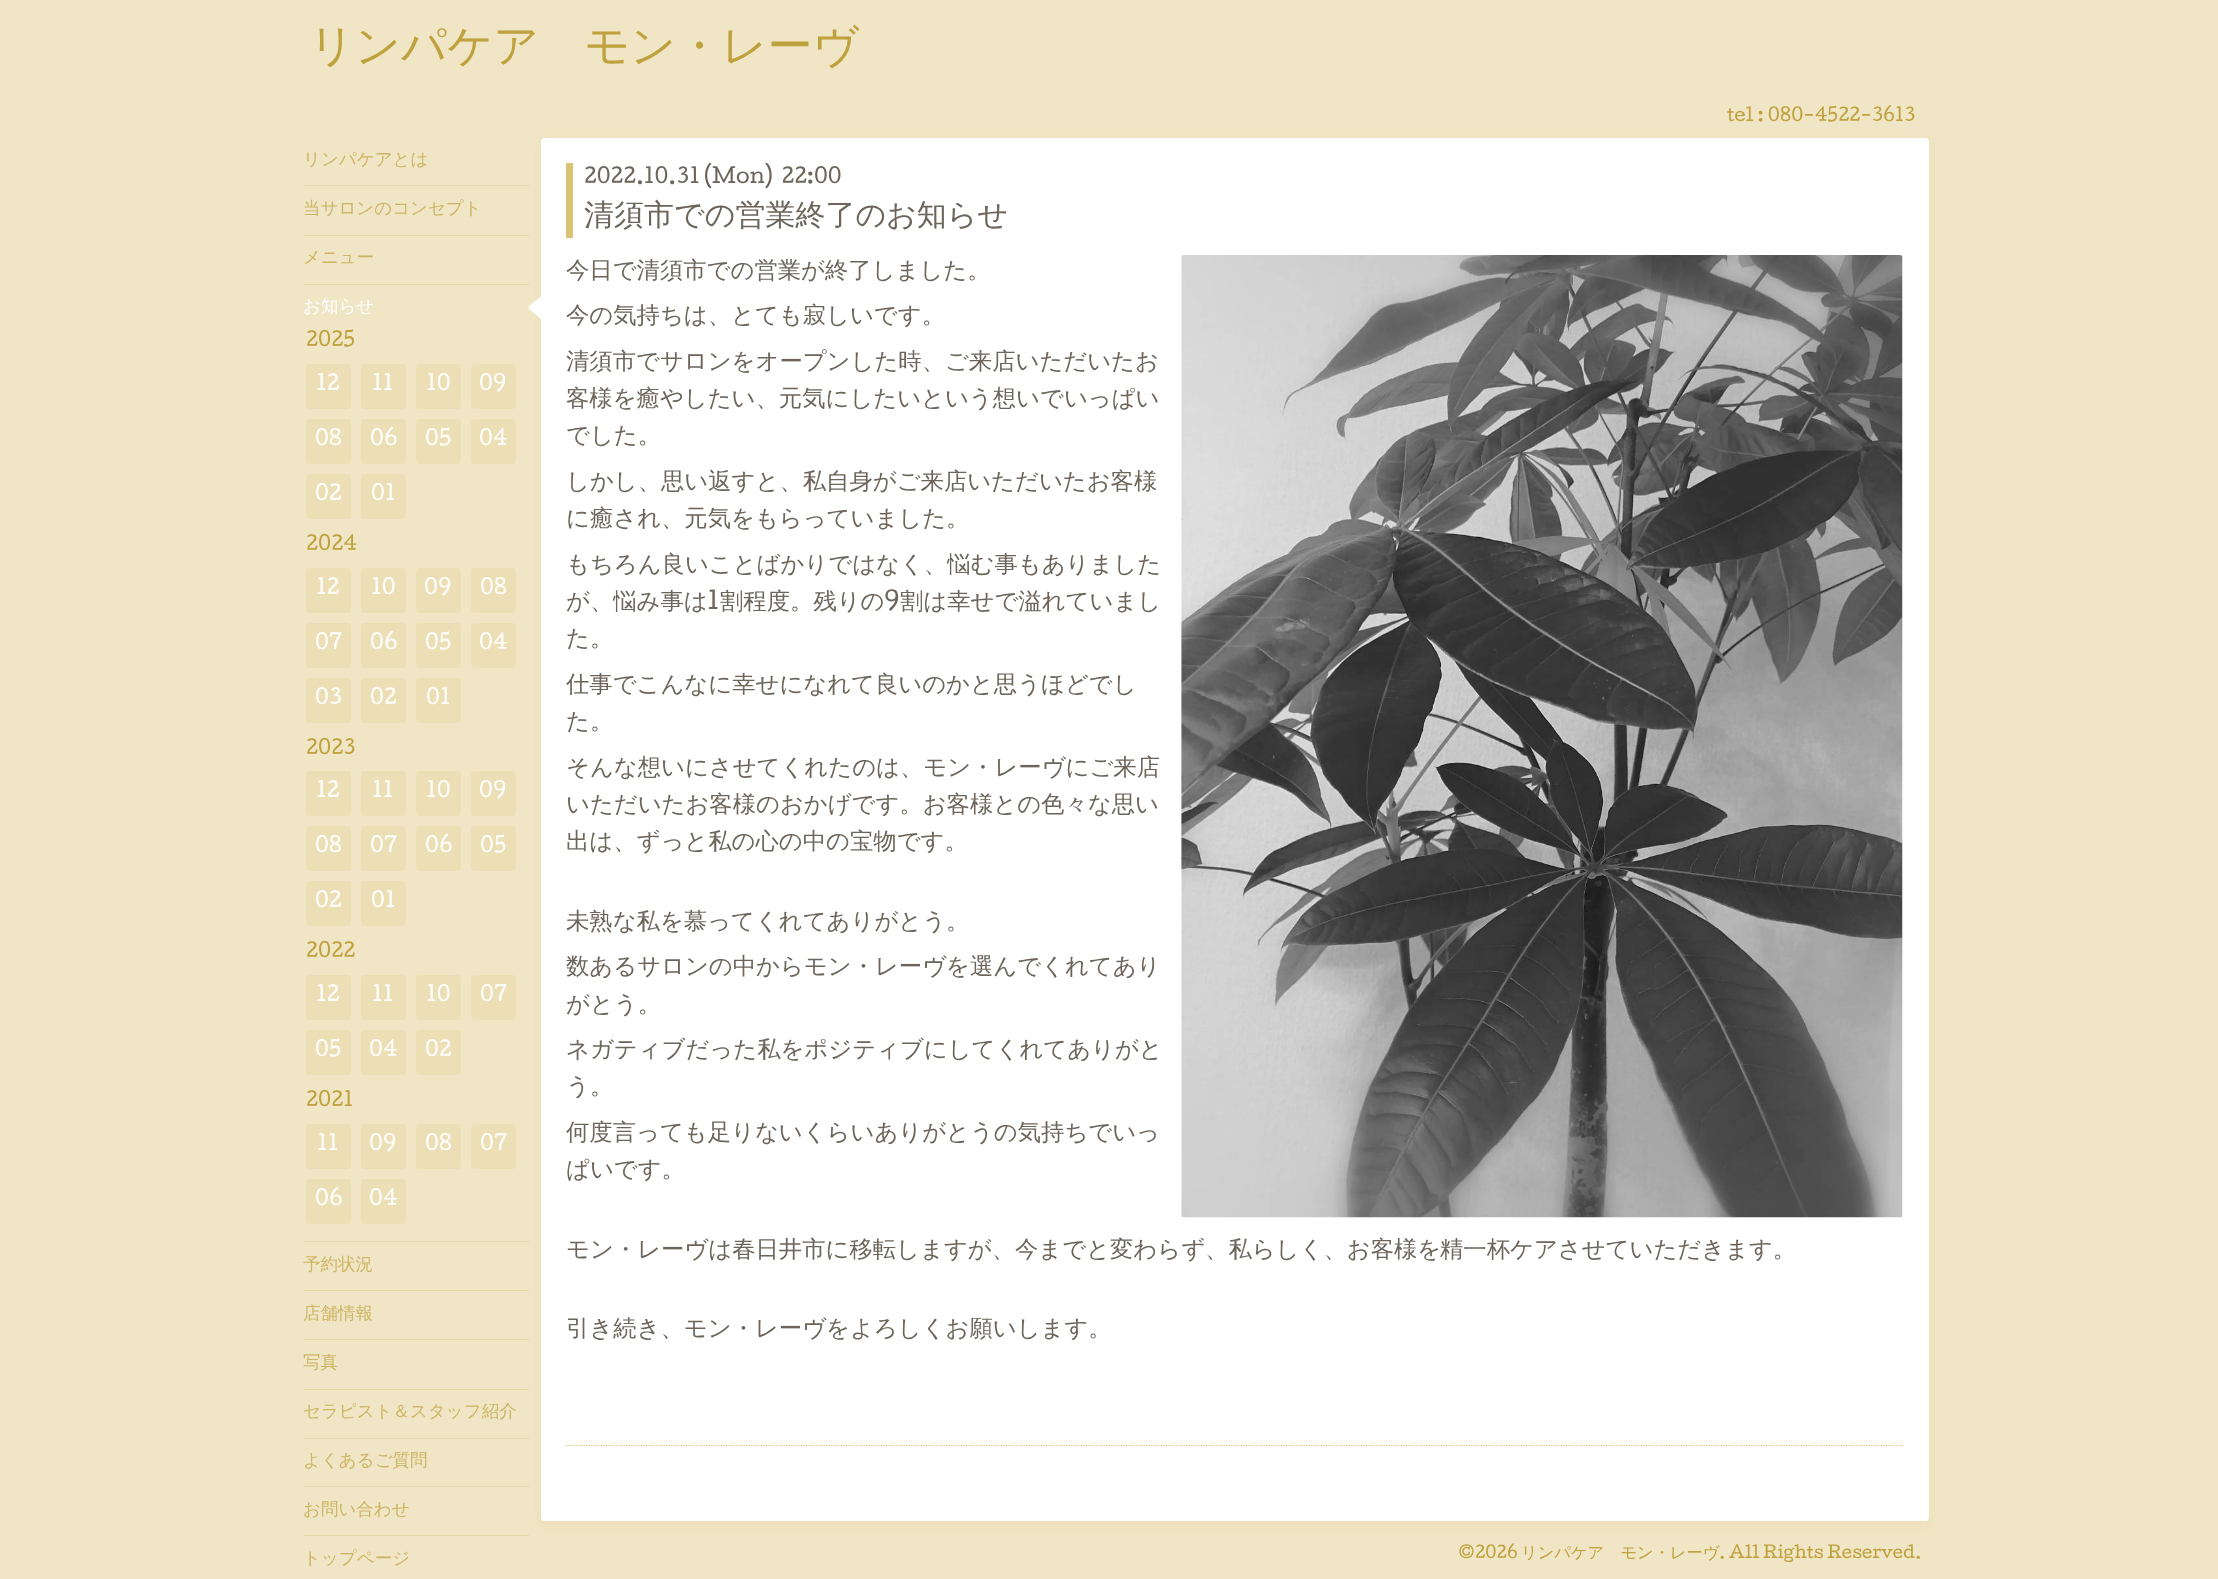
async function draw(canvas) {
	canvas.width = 2218;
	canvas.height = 1579;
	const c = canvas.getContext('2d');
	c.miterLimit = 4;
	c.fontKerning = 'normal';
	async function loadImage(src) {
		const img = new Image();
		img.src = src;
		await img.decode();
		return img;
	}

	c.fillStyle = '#f0e6c5';
	c.fillRect(0, 0, 2218, 1579);
	c.font = '500 45px WenQuanYi Zen Hei';
	c.fillStyle = '#bfa13d';
	c.fillText('リンパケア　モン・レーヴ', 309, 61);
	c.font = '17.5px Cutive';
	c.fillText('tel : 080-4522-3613', 1727, 121);
	c.font = '500 17.5px WenQuanYi Zen Hei';
	c.fillStyle = '#cdb565';
	c.fillText('リンパケアとは', 303, 165);
	c.fillStyle = '#e8d8a566';
	c.filter = 'blur(6px)';
	c.beginPath();
	c.roundRect(541, 141, 1388, 1384, 4);
	c.fill();
	c.filter = 'none';
	c.fillStyle = '#e5d7a8';
	c.fillRect(304, 185, 225, 1);
	c.fillStyle = '#cdb565';
	c.fillText('当サロンのコンセプト', 303, 214);
	c.fillStyle = '#e5d7a8';
	c.fillRect(304, 235, 225, 1);
	c.fillStyle = '#cdb565';
	c.fillText('メニュー', 303, 263);
	c.drawImage(await loadImage('img1.png'), 528, 296, 13, 23);
	c.fillStyle = '#e5d7a8';
	c.fillRect(304, 284, 225, 1);
	c.fillStyle = '#fff';
	c.fillText('お知らせ', 303, 312);
	c.font = '19px Cutive';
	c.fillStyle = '#bfa13d';
	c.fillText('2025', 306, 346);
	c.fillStyle = '#ecdfb5';
	c.beginPath();
	c.roundRect(306, 364, 45, 45, 4);
	c.fill();
	c.font = '20px Cutive';
	c.fillStyle = '#fff';
	c.fillText('12', 316, 390);
	c.fillStyle = '#ecdfb5';
	c.beginPath();
	c.roundRect(361, 364, 45, 45, 4);
	c.fill();
	c.fillStyle = '#fff';
	c.fillText('11', 372, 390);
	c.fillStyle = '#ecdfb5';
	c.beginPath();
	c.roundRect(416, 364, 45, 45, 4);
	c.fill();
	c.fillStyle = '#fff';
	c.fillText('10', 426, 390);
	c.fillStyle = '#ecdfb5';
	c.beginPath();
	c.roundRect(471, 364, 45, 45, 4);
	c.fill();
	c.fillStyle = '#fff';
	c.fillText('09', 479, 390);
	c.fillStyle = '#ecdfb5';
	c.beginPath();
	c.roundRect(306, 419, 45, 45, 4);
	c.fill();
	c.fillStyle = '#fff';
	c.fillText('08', 315, 445);
	c.fillStyle = '#ecdfb5';
	c.beginPath();
	c.roundRect(361, 419, 45, 45, 4);
	c.fill();
	c.fillStyle = '#fff';
	c.fillText('06', 370, 445);
	c.fillStyle = '#ecdfb5';
	c.beginPath();
	c.roundRect(416, 419, 45, 45, 4);
	c.fill();
	c.fillStyle = '#fff';
	c.fillText('05', 425, 445);
	c.fillStyle = '#ecdfb5';
	c.beginPath();
	c.roundRect(471, 419, 45, 45, 4);
	c.fill();
	c.fillStyle = '#fff';
	c.fillText('04', 479, 445);
	c.fillStyle = '#ecdfb5';
	c.beginPath();
	c.roundRect(306, 474, 45, 45, 4);
	c.fill();
	c.fillStyle = '#fff';
	c.fillText('02', 315, 500);
	c.fillStyle = '#ecdfb5';
	c.beginPath();
	c.roundRect(361, 474, 45, 45, 4);
	c.fill();
	c.fillStyle = '#fff';
	c.fillText('01', 371, 500);
	c.font = '19px Cutive';
	c.fillStyle = '#bfa13d';
	c.fillText('2024', 306, 550);
	c.fillStyle = '#ecdfb5';
	c.beginPath();
	c.roundRect(306, 568, 45, 45, 4);
	c.fill();
	c.font = '20px Cutive';
	c.fillStyle = '#fff';
	c.fillText('12', 316, 594);
	c.fillStyle = '#ecdfb5';
	c.beginPath();
	c.roundRect(361, 568, 45, 45, 4);
	c.fill();
	c.fillStyle = '#fff';
	c.fillText('10', 371, 594);
	c.fillStyle = '#ecdfb5';
	c.beginPath();
	c.roundRect(416, 568, 45, 45, 4);
	c.fill();
	c.fillStyle = '#fff';
	c.fillText('09', 424, 594);
	c.fillStyle = '#ecdfb5';
	c.beginPath();
	c.roundRect(471, 568, 45, 45, 4);
	c.fill();
	c.fillStyle = '#fff';
	c.fillText('08', 480, 594);
	c.fillStyle = '#ecdfb5';
	c.beginPath();
	c.roundRect(306, 623, 45, 45, 4);
	c.fill();
	c.fillStyle = '#fff';
	c.fillText('07', 315, 649);
	c.fillStyle = '#ecdfb5';
	c.beginPath();
	c.roundRect(361, 623, 45, 45, 4);
	c.fill();
	c.fillStyle = '#fff';
	c.fillText('06', 370, 649);
	c.fillStyle = '#ecdfb5';
	c.beginPath();
	c.roundRect(416, 623, 45, 45, 4);
	c.fill();
	c.fillStyle = '#fff';
	c.fillText('05', 425, 649);
	c.fillStyle = '#ecdfb5';
	c.beginPath();
	c.roundRect(471, 623, 45, 45, 4);
	c.fill();
	c.fillStyle = '#fff';
	c.fillText('04', 479, 649);
	c.fillStyle = '#ecdfb5';
	c.beginPath();
	c.roundRect(306, 678, 45, 45, 4);
	c.fill();
	c.fillStyle = '#fff';
	c.fillText('03', 315, 704);
	c.fillStyle = '#ecdfb5';
	c.beginPath();
	c.roundRect(361, 678, 45, 45, 4);
	c.fill();
	c.fillStyle = '#fff';
	c.fillText('02', 370, 704);
	c.fillStyle = '#ecdfb5';
	c.beginPath();
	c.roundRect(416, 678, 45, 45, 4);
	c.fill();
	c.fillStyle = '#fff';
	c.fillText('01', 426, 704);
	c.font = '19px Cutive';
	c.fillStyle = '#bfa13d';
	c.fillText('2023', 306, 754);
	c.fillStyle = '#ecdfb5';
	c.beginPath();
	c.roundRect(306, 771, 45, 45, 4);
	c.fill();
	c.font = '20px Cutive';
	c.fillStyle = '#fff';
	c.fillText('12', 316, 797);
	c.fillStyle = '#ecdfb5';
	c.beginPath();
	c.roundRect(361, 771, 45, 45, 4);
	c.fill();
	c.fillStyle = '#fff';
	c.fillText('11', 372, 797);
	c.fillStyle = '#ecdfb5';
	c.beginPath();
	c.roundRect(416, 771, 45, 45, 4);
	c.fill();
	c.fillStyle = '#fff';
	c.fillText('10', 426, 797);
	c.fillStyle = '#ecdfb5';
	c.beginPath();
	c.roundRect(471, 771, 45, 45, 4);
	c.fill();
	c.fillStyle = '#fff';
	c.fillText('09', 479, 797);
	c.fillStyle = '#ecdfb5';
	c.beginPath();
	c.roundRect(306, 826, 45, 45, 4);
	c.fill();
	c.fillStyle = '#fff';
	c.fillText('08', 315, 852);
	c.fillStyle = '#ecdfb5';
	c.beginPath();
	c.roundRect(361, 826, 45, 45, 4);
	c.fill();
	c.fillStyle = '#fff';
	c.fillText('07', 370, 852);
	c.fillStyle = '#ecdfb5';
	c.beginPath();
	c.roundRect(416, 826, 45, 45, 4);
	c.fill();
	c.fillStyle = '#fff';
	c.fillText('06', 425, 852);
	c.fillStyle = '#ecdfb5';
	c.beginPath();
	c.roundRect(471, 826, 45, 45, 4);
	c.fill();
	c.fillStyle = '#fff';
	c.fillText('05', 480, 852);
	c.fillStyle = '#ecdfb5';
	c.beginPath();
	c.roundRect(306, 881, 45, 45, 4);
	c.fill();
	c.fillStyle = '#fff';
	c.fillText('02', 315, 907);
	c.fillStyle = '#ecdfb5';
	c.beginPath();
	c.roundRect(361, 881, 45, 45, 4);
	c.fill();
	c.fillStyle = '#fff';
	c.fillText('01', 371, 907);
	c.font = '19px Cutive';
	c.fillStyle = '#bfa13d';
	c.fillText('2022', 306, 957);
	c.fillStyle = '#ecdfb5';
	c.beginPath();
	c.roundRect(306, 975, 45, 45, 4);
	c.fill();
	c.font = '20px Cutive';
	c.fillStyle = '#fff';
	c.fillText('12', 316, 1001);
	c.fillStyle = '#ecdfb5';
	c.beginPath();
	c.roundRect(361, 975, 45, 45, 4);
	c.fill();
	c.fillStyle = '#fff';
	c.fillText('11', 372, 1001);
	c.fillStyle = '#ecdfb5';
	c.beginPath();
	c.roundRect(416, 975, 45, 45, 4);
	c.fill();
	c.fillStyle = '#fff';
	c.fillText('10', 426, 1001);
	c.fillStyle = '#ecdfb5';
	c.beginPath();
	c.roundRect(471, 975, 45, 45, 4);
	c.fill();
	c.fillStyle = '#fff';
	c.fillText('07', 480, 1001);
	c.fillStyle = '#ecdfb5';
	c.beginPath();
	c.roundRect(306, 1030, 45, 45, 4);
	c.fill();
	c.fillStyle = '#fff';
	c.fillText('05', 315, 1056);
	c.fillStyle = '#ecdfb5';
	c.beginPath();
	c.roundRect(361, 1030, 45, 45, 4);
	c.fill();
	c.fillStyle = '#fff';
	c.fillText('04', 369, 1056);
	c.fillStyle = '#ecdfb5';
	c.beginPath();
	c.roundRect(416, 1030, 45, 45, 4);
	c.fill();
	c.fillStyle = '#fff';
	c.fillText('02', 425, 1056);
	c.font = '19px Cutive';
	c.fillStyle = '#bfa13d';
	c.fillText('2021', 306, 1106);
	c.fillStyle = '#ecdfb5';
	c.beginPath();
	c.roundRect(306, 1124, 45, 45, 4);
	c.fill();
	c.font = '20px Cutive';
	c.fillStyle = '#fff';
	c.fillText('11', 317, 1150);
	c.fillStyle = '#ecdfb5';
	c.beginPath();
	c.roundRect(361, 1124, 45, 45, 4);
	c.fill();
	c.fillStyle = '#fff';
	c.fillText('09', 369, 1150);
	c.fillStyle = '#ecdfb5';
	c.beginPath();
	c.roundRect(416, 1124, 45, 45, 4);
	c.fill();
	c.fillStyle = '#fff';
	c.fillText('08', 425, 1150);
	c.fillStyle = '#ecdfb5';
	c.beginPath();
	c.roundRect(471, 1124, 45, 45, 4);
	c.fill();
	c.fillStyle = '#fff';
	c.fillText('07', 480, 1150);
	c.fillStyle = '#ecdfb5';
	c.beginPath();
	c.roundRect(306, 1179, 45, 45, 4);
	c.fill();
	c.fillStyle = '#fff';
	c.fillText('06', 315, 1205);
	c.fillStyle = '#ecdfb5';
	c.beginPath();
	c.roundRect(361, 1179, 45, 45, 4);
	c.fill();
	c.fillStyle = '#fff';
	c.fillText('04', 369, 1205);
	c.fillStyle = '#e5d7a8';
	c.fillRect(304, 1241, 225, 1);
	c.font = '500 17.5px WenQuanYi Zen Hei';
	c.fillStyle = '#cdb565';
	c.fillText('予約状況', 303, 1270);
	c.fillStyle = '#e5d7a8';
	c.fillRect(304, 1290, 225, 1);
	c.fillStyle = '#cdb565';
	c.fillText('店舗情報', 303, 1319);
	c.fillStyle = '#e5d7a8';
	c.fillRect(304, 1339, 225, 1);
	c.fillStyle = '#cdb565';
	c.fillText('写真', 303, 1368);
	c.fillStyle = '#e5d7a8';
	c.fillRect(304, 1389, 225, 1);
	c.fillStyle = '#cdb565';
	c.fillText('セラピスト＆スタッフ紹介', 303, 1417);
	c.fillStyle = '#e5d7a8';
	c.fillRect(304, 1438, 225, 1);
	c.fillStyle = '#cdb565';
	c.fillText('よくあるご質問', 303, 1466);
	c.fillStyle = '#e5d7a8';
	c.fillRect(304, 1486, 225, 1);
	c.fillStyle = '#cdb565';
	c.fillText('お問い合わせ', 303, 1515);
	c.fillStyle = '#e5d7a8';
	c.fillRect(304, 1535, 225, 1);
	c.fillStyle = '#cdb565';
	c.fillText('トップページ', 303, 1564);
	c.fillStyle = '#fff';
	c.beginPath();
	c.roundRect(541, 138, 1388, 1383, 4);
	c.fill();
	c.beginPath();
	c.moveTo(566, 1445.5);
	c.lineTo(1904, 1445.5);
	c.strokeStyle = '#dbc374';
	c.lineWidth = 1.2;
	c.setLineDash([1.25, 1.25]);
	c.stroke();
	c.fillStyle = '#dbc374';
	c.fillRect(566, 163, 7, 75);
	c.font = '20px Cutive';
	c.fillStyle = '#6d655b';
	c.fillText('2022.10.31 (Mon)  22:00', 584, 183);
	c.font = '500 30px WenQuanYi Zen Hei';
	c.fillText('清須市での営業終了のお知らせ', 584, 225);
	c.drawImage(await loadImage('img2.png'), 1181, 255, 722, 963);
	c.font = '500 23.35px WenQuanYi Zen Hei';
	for (const [text, x, y] of [
		['今日で清須市での営業が終了しました。', 566, 278],
		['今の気持ちは、とても寂しいです。', 566, 323],
		['清須市でサロンをオープンした時、ご来店いただいたお', 566, 369],
		['客様を癒やしたい、元気にしたいという想いでいっぱい', 566, 406],
		['でした。', 566, 443],
		['しかし、思い返すと、私自身がご来店いただいたお客様', 566, 489],
		['に癒され、元気をもらっていました。', 566, 526],
		['もちろん良いことばかりではなく、悩む事もありました', 566, 572],
		['が、悩み事は', 566, 609],
	]) {
		c.fillText(text, x, y);
	}
	c.font = '23.35px Cutive';
	c.fillText('1', 707, 609);
	c.font = '500 23.35px WenQuanYi Zen Hei';
	c.fillText('割程度。残りの', 720, 609);
	c.font = '23.35px Cutive';
	c.fillText('9', 884, 609);
	c.font = '500 23.35px WenQuanYi Zen Hei';
	for (const [text, x, y] of [
		['割は幸せで溢れていまし', 900, 609],
		['た。', 566, 646],
		['仕事でこんなに幸せになれて良いのかと思うほどでし', 566, 692],
		['た。', 566, 729],
		['そんな想いにさせてくれたのは、モン・レーヴにご来店', 566, 775],
		['いただいたお客様のおかげです。お客様との色々な思い', 566, 812],
		['出は、ずっと私の心の中の宝物です。', 566, 849],
		['未熟な私を慕ってくれてありがとう。', 566, 929],
		['数あるサロンの中からモン・レーヴを選んでくれてあり', 566, 974],
		['がとう。', 566, 1012],
		['ネガティブだった私をポジティブにしてくれてありがと', 566, 1057],
		['う。', 566, 1094],
		['何度言っても足りないくらいありがとうの気持ちでいっ', 566, 1140],
		['ぱいです。', 566, 1177],
		['モン・レーヴは春日井市に移転しますが、今までと変わらず、私らしく、お客様を', 566, 1257],
		['精一杯ケアさせていただきます。', 1440, 1257],
		['引き続き、モン・レーヴをよろしくお願いします。', 566, 1336],
	]) {
		c.fillText(text, x, y);
	}
	c.font = '16.25px Cutive';
	c.fillStyle = '#bfa13d';
	c.fillText('©2026', 1458, 1558);
	c.font = '500 16.25px WenQuanYi Zen Hei';
	c.fillText('リンパケア　モン・レーヴ', 1521, 1558);
	c.font = '16.25px Cutive';
	c.fillText('. All Rights Reserved.', 1719, 1558);
}

draw(document.querySelector('canvas'));
